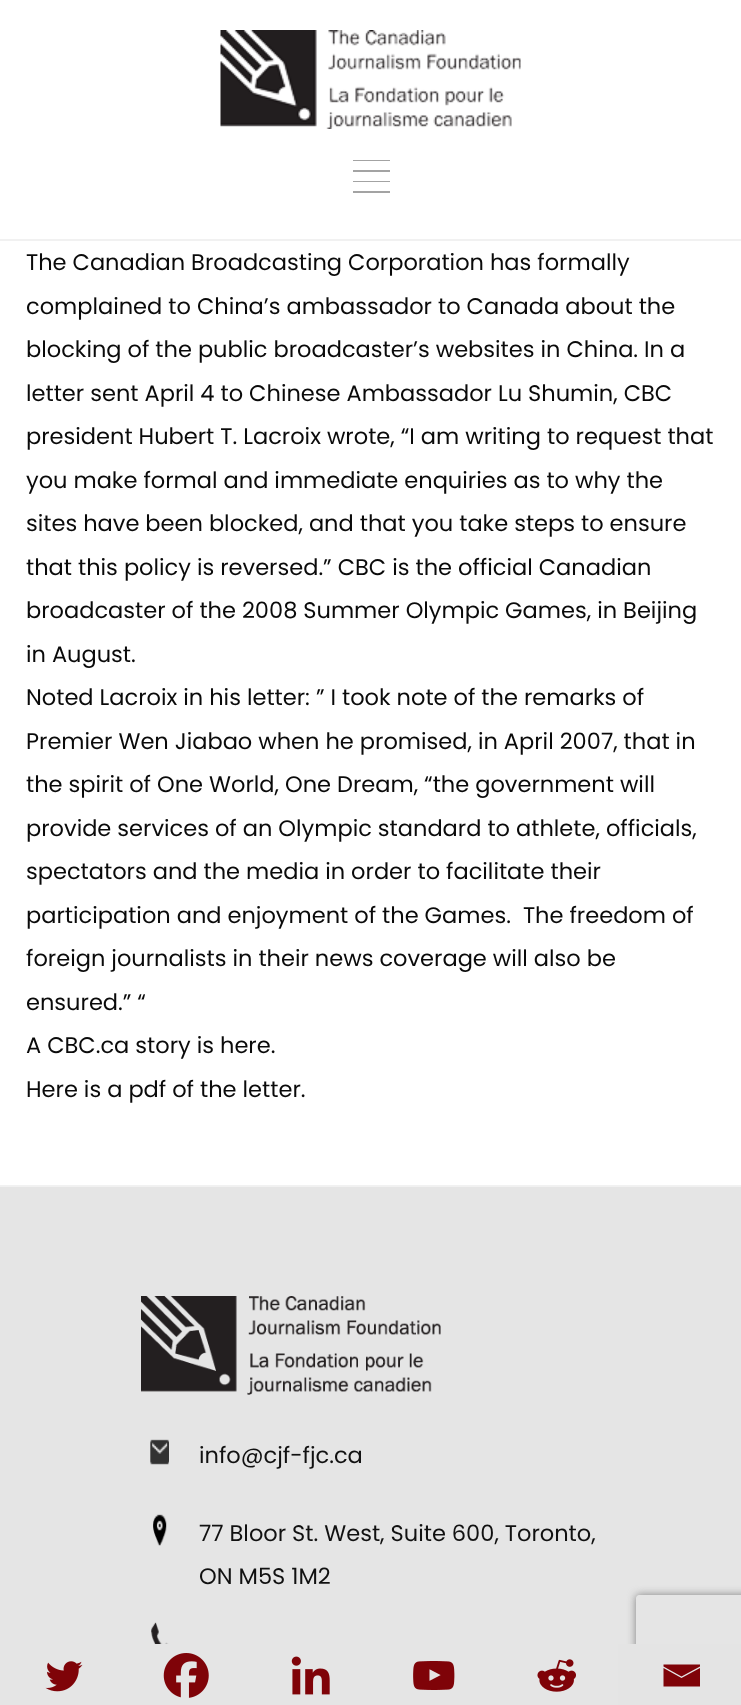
async function draw(canvas) {
	canvas.width = 741;
	canvas.height = 1705;
	const c = canvas.getContext('2d');
	c.miterLimit = 4;
	c.fontKerning = 'normal';
	async function loadImage(src) {
		const img = new Image();
		img.src = src;
		await img.decode();
		return img;
	}

	c.fillStyle = '#fff';
	c.fillRect(0, 0, 741, 1705);
	c.fillStyle = '#f1f1f1';
	c.fillRect(0, 239, 741, 2);
	c.drawImage(await loadImage('img1.png'), 220, 30, 301, 99);
	for (const [x, y, w, h, color] of [
		[353, 160, 37, 1, '#a3a3a3'],
		[353, 170, 37, 2, '#a3a3a3'],
		[353, 181, 37, 1, '#a3a3a3'],
		[353, 191, 37, 2, '#a3a3a3'],
	]) {
		c.fillStyle = color;
		c.fillRect(x, y, w, h);
	}
	c.font = '22.5px Poppins';
	c.fillStyle = '#0a0a0a';
	for (const [text, x, y] of [
		['The Canadian Broadcasting Corporation has formally', 26, 270],
		['complained to China’s ambassador to Canada about the', 26, 314],
		['blocking of the public broadcaster’s websites in China. In a', 26, 357],
		['letter sent April 4 to Chinese Ambassador Lu Shumin, CBC', 26, 401],
		['president Hubert T. Lacroix wrote, “I am writing to request that', 26, 444],
		['you make formal and immediate enquiries as to why the', 26, 488],
		['sites have been blocked, and that you take steps to ensure', 26, 531],
		['that this policy is reversed.” CBC is the official Canadian', 26, 575],
		['broadcaster of the 2008 Summer Olympic Games, in Beijing', 26, 618],
		['in August.', 26, 662],
		['Noted Lacroix in his letter: ” I took note of the remarks of', 26, 705],
		['Premier Wen Jiabao when he promised, in April 2007, that in', 26, 749],
		['the spirit of One World, One Dream, “the government will', 26, 792],
		['provide services of an Olympic standard to athlete, officials,', 26, 836],
		['spectators and the media in order to facilitate their', 26, 879],
		['participation and enjoyment of the Games.  The freedom of', 26, 923],
		['foreign journalists in their news coverage will also be', 26, 966],
		['ensured.” “', 26, 1010],
		['A CBC.ca story is here.', 26, 1053],
		['Here is a pdf of the letter.', 26, 1097],
	]) {
		c.fillText(text, x, y);
	}
	c.fillStyle = '#e5e5e5';
	c.fillRect(0, 1187, 741, 518);
	c.drawImage(await loadImage('img2.png'), 45, 1661, 38, 31);
	c.drawImage(await loadImage('img3.png'), 163, 1653, 46, 45);
	c.drawImage(await loadImage('img4.png'), 291, 1656, 39, 39);
	c.drawImage(await loadImage('img5.png'), 413, 1661, 42, 29);
	c.drawImage(await loadImage('img6.png'), 537, 1659, 39, 33);
	c.save();
	c.beginPath();
	c.moveTo(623, 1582);
	c.lineTo(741, 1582);
	c.lineTo(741, 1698);
	c.lineTo(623, 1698);
	c.closePath();
	c.moveTo(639, 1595);
	c.lineTo(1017, 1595);
	c.bezierCurveTo(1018.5, 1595, 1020, 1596.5, 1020, 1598);
	c.lineTo(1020, 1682);
	c.bezierCurveTo(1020, 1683.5, 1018.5, 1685, 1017, 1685);
	c.lineTo(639, 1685);
	c.bezierCurveTo(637.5, 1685, 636, 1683.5, 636, 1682);
	c.lineTo(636, 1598);
	c.bezierCurveTo(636, 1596.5, 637.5, 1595, 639, 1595);
	c.closePath();
	c.clip('evenodd');
	c.fillStyle = '#808080';
	c.filter = 'blur(4px)';
	c.beginPath();
	c.roundRect(636, 1595, 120, 90, 3);
	c.fill();
	c.filter = 'none';
	c.restore();
	c.fillStyle = '#e4e4e4';
	c.beginPath();
	c.roundRect(618, 1644, 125, 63, 1.5);
	c.fill();
	c.fillStyle = '#7f0308';
	c.beginPath();
	c.moveTo(661.5, 1664.5);
	c.lineTo(700, 1664.5);
	c.lineTo(700, 1666.5);
	c.lineTo(681.5, 1676.5);
	c.lineTo(663.5, 1666.5);
	c.lineTo(663.5, 1664.5);
	c.moveTo(663.5, 1668);
	c.lineTo(681.5, 1678);
	c.lineTo(700, 1668);
	c.lineTo(700, 1686.5);
	c.lineTo(663.5, 1686.5);
	c.lineTo(663.5, 1668);
	c.fill();
	c.fillStyle = '#f1f1f1';
	c.fillRect(0, 1185, 741, 2);
	c.drawImage(await loadImage('img7.png'), 141, 1296, 300, 99);
	c.drawImage(await loadImage('img8.png'), 150, 1439, 19, 26);
	c.fillStyle = '#111';
	c.fillText('info@cjf-fjc.ca', 199, 1463);
	c.drawImage(await loadImage('img9.png'), 153, 1514, 14, 32);
	c.fillText('77 Bloor St. West, Suite 600, Toronto,', 199, 1541);
	c.fillText('ON M5S 1M2', 199, 1584);
	c.drawImage(await loadImage('img10.png'), 151, 1622, 21, 22);
}

draw(document.querySelector('canvas'));
